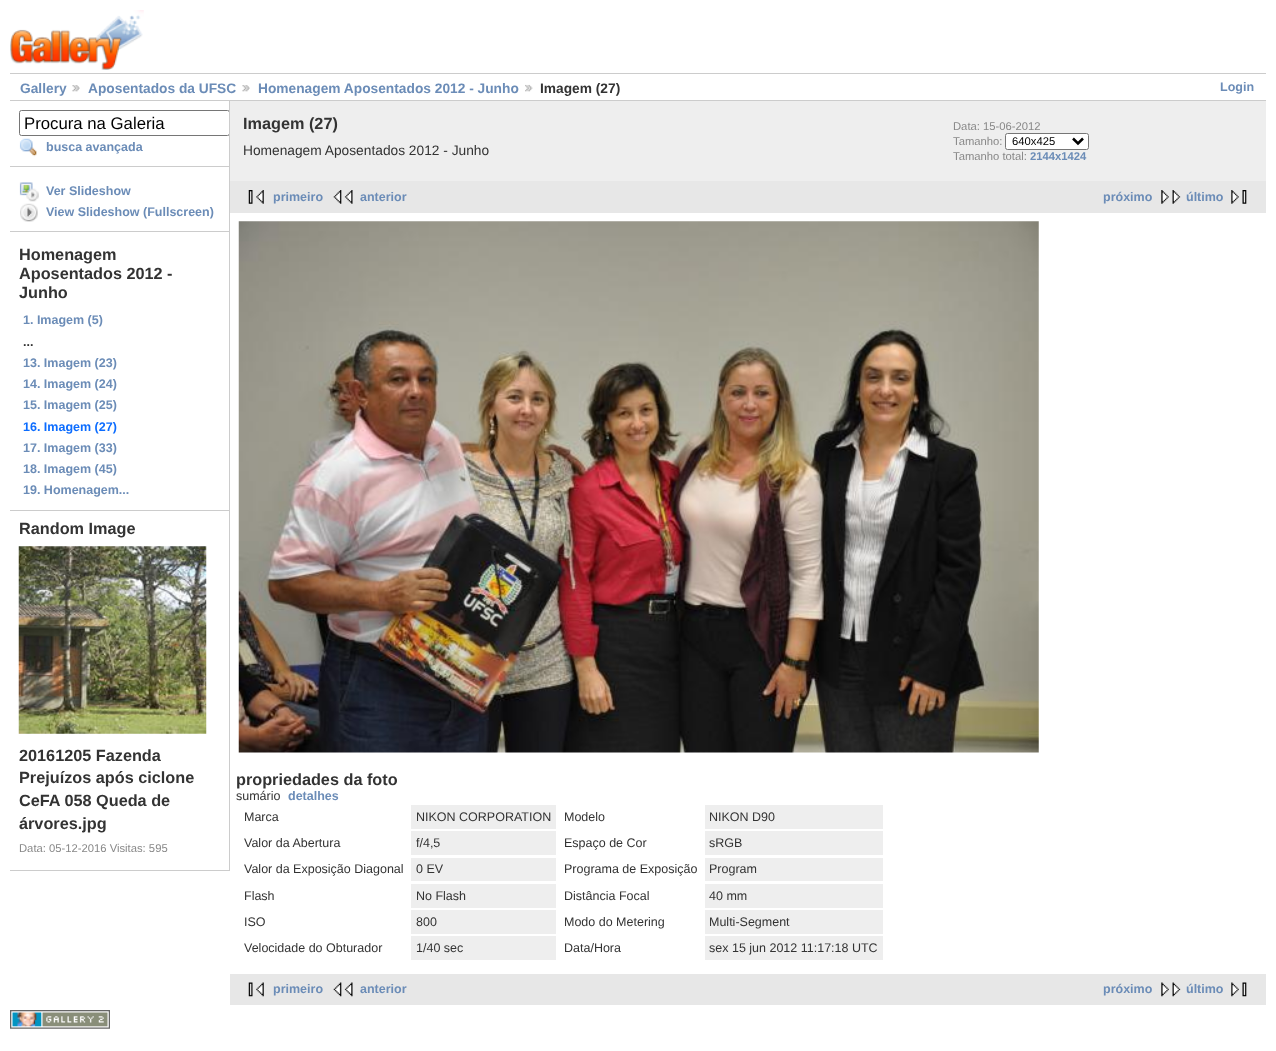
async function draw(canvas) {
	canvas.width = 1276;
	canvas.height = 1051;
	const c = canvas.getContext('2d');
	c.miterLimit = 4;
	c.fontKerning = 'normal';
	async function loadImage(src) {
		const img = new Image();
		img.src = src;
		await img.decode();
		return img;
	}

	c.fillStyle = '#fff';
	c.fillRect(0, 0, 1276, 1051);
	c.drawImage(await loadImage('img1.png'), 10, 10, 134, 60);
	c.fillStyle = '#ccc';
	c.fillRect(10, 73, 1256, 1);
	c.fillRect(10, 100, 1256, 1);
	c.font = 'bold 13.75px Liberation Sans';
	c.fillStyle = '#6b8cb7';
	c.fillText('Gallery', 20, 93);
	c.drawImage(await loadImage('img2.png'), 72, 85, 8, 7);
	c.fillText('Aposentados da UFSC', 88, 93);
	c.drawImage(await loadImage('img2.png'), 242, 85, 8, 7);
	c.fillText('Homenagem Aposentados 2012 - Junho', 258, 93);
	c.drawImage(await loadImage('img3.png'), 525, 84, 8, 8);
	c.fillStyle = '#333';
	c.fillText('Imagem (27)', 540, 93);
	c.font = 'bold 12.5px Liberation Sans';
	c.fillStyle = '#6b8cb7';
	c.fillText('Login', 1220, 91);
	c.fillStyle = '#ccc';
	c.fillRect(229, 101, 1, 770);
	c.fillRect(10, 166, 219, 1);
	c.save();
	c.beginPath();
	c.rect(10, 101, 219, 770);
	c.clip();
	c.beginPath();
	c.roundRect(19.5, 110.5, 210, 25, 2);
	c.strokeStyle = '#767676';
	c.stroke();
	c.restore();
	c.font = '16.75px Liberation Sans';
	c.fillStyle = '#000';
	c.fillText('Procura na Galeria', 24, 129);
	c.drawImage(await loadImage('img4.png'), 19, 138, 18, 19);
	c.font = 'bold 12.5px Liberation Sans';
	c.fillStyle = '#6b8cb7';
	c.fillText('busca avançada', 46, 151);
	c.fillStyle = '#ccc';
	c.fillRect(10, 231, 219, 1);
	c.drawImage(await loadImage('img5.png'), 19, 182, 20, 20);
	c.fillStyle = '#6b8cb7';
	c.fillText('Ver Slideshow', 46, 195);
	c.drawImage(await loadImage('img6.png'), 20, 203, 18, 19);
	c.fillText('View Slideshow (Fullscreen)', 46, 216);
	c.fillStyle = '#ccc';
	c.fillRect(10, 510, 219, 1);
	c.font = 'bold 16.25px Liberation Sans';
	c.fillStyle = '#333';
	for (const [text, x, y] of [
		['Homenagem', 19, 260],
		['Aposentados 2012 -', 19, 279],
		['Junho', 19, 298],
	]) {
		c.fillText(text, x, y);
	}
	c.font = 'bold 12.5px Liberation Sans';
	c.fillStyle = '#6b8cb7';
	c.fillText('1. Imagem (5)', 23, 324);
	c.fillStyle = '#333';
	c.fillText('...', 23, 346);
	c.fillStyle = '#6b8cb7';
	for (const [text, x, y] of [
		['13. Imagem (23)', 23, 367],
		['14. Imagem (24)', 23, 388],
		['15. Imagem (25)', 23, 409],
	]) {
		c.fillText(text, x, y);
	}
	c.fillStyle = '#0b6cff';
	c.fillText('16. Imagem (27)', 23, 431);
	c.fillStyle = '#6b8cb7';
	for (const [text, x, y] of [
		['17. Imagem (33)', 23, 452],
		['18. Imagem (45)', 23, 473],
		['19. Homenagem...', 23, 494],
	]) {
		c.fillText(text, x, y);
	}
	c.fillStyle = '#ccc';
	c.fillRect(10, 870, 219, 1);
	c.font = 'bold 16.25px Liberation Sans';
	c.fillStyle = '#333';
	c.fillText('Random Image', 19, 534);
	c.drawImage(await loadImage('img7.png'), 18, 546, 189, 188);
	for (const [text, x, y] of [
		['20161205 Fazenda', 19, 761],
		['Prejuízos após ciclone', 19, 783],
		['CeFA 058 Queda de', 19, 806],
		['árvores.jpg', 19, 829],
	]) {
		c.fillText(text, x, y);
	}
	c.font = '11.25px Liberation Sans';
	c.fillStyle = '#888';
	c.fillText('Data: 05-12-2016 Visitas: 595', 19, 852);
	c.fillStyle = '#eee';
	c.fillRect(230, 101, 1036, 80);
	c.font = 'bold 16.25px Liberation Sans';
	c.fillStyle = '#333';
	c.fillText('Imagem (27)', 243, 129);
	c.font = '13.75px Liberation Sans';
	c.fillText('Homenagem Aposentados 2012 - Junho', 243, 155);
	c.font = '11.25px Liberation Sans';
	c.fillStyle = '#888';
	c.fillText('Data: 15-06-2012', 953, 130);
	c.fillText('Tamanho:', 953, 145);
	c.fillStyle = '#fff';
	c.beginPath();
	c.roundRect(1005.5, 133.5, 83, 16, 2);
	c.fill();
	c.strokeStyle = '#767676';
	c.stroke();
	c.beginPath();
	c.moveTo(1073, 138.5);
	c.lineTo(1078, 143.5);
	c.lineTo(1083, 138.5);
	c.strokeStyle = '#000';
	c.lineWidth = 2.5;
	c.stroke();
	c.fillStyle = '#000';
	c.fillText('640x425', 1012, 145);
	c.fillStyle = '#888';
	c.fillText('Tamanho total:', 953, 160);
	c.font = 'bold 11.25px Liberation Sans';
	c.fillStyle = '#6b8cb7';
	c.fillText('2144x1424', 1030, 160);
	c.fillStyle = '#e7e7e7';
	c.fillRect(230, 181, 1036, 32);
	c.drawImage(await loadImage('img8.png'), 248, 190, 16, 14);
	c.font = 'bold 12.5px Liberation Sans';
	c.fillStyle = '#6b8cb7';
	c.fillText('primeiro', 273, 201);
	c.drawImage(await loadImage('img9.png'), 333, 190, 20, 14);
	c.fillText('anterior', 360, 201);
	c.fillText('próximo', 1103, 201);
	c.drawImage(await loadImage('img10.png'), 1161, 190, 20, 14);
	c.fillText('último', 1186, 201);
	c.drawImage(await loadImage('img11.png'), 1231, 190, 16, 14);
	c.drawImage(await loadImage('img12.png'), 238, 221, 801, 532);
	c.font = 'bold 16.25px Liberation Sans';
	c.fillStyle = '#333';
	c.fillText('propriedades da foto', 236, 785);
	c.font = '12.5px Liberation Sans';
	c.fillText('sumário', 236, 800);
	c.font = 'bold 12.5px Liberation Sans';
	c.fillStyle = '#6b8cb7';
	c.fillText('detalhes', 288, 800);
	c.font = '12.5px Liberation Sans';
	c.fillStyle = '#333';
	c.fillText('Marca', 244, 821);
	c.fillStyle = '#eee';
	c.fillRect(411, 805, 145, 24);
	c.fillStyle = '#333';
	c.fillText('NIKON CORPORATION', 416, 821);
	c.fillText('Modelo', 564, 821);
	c.fillStyle = '#eee';
	c.fillRect(705, 805, 178, 24);
	c.fillStyle = '#333';
	c.fillText('NIKON D90', 709, 821);
	c.fillText('Valor da Abertura', 244, 847);
	c.fillStyle = '#eee';
	c.fillRect(411, 831, 145, 24);
	c.fillStyle = '#333';
	c.fillText('f/4,5', 416, 847);
	c.fillText('Espaço de Cor', 564, 847);
	c.fillStyle = '#eee';
	c.fillRect(705, 831, 178, 24);
	c.fillStyle = '#333';
	c.fillText('sRGB', 709, 847);
	c.fillText('Valor da Exposição Diagonal', 244, 873);
	c.fillStyle = '#eee';
	c.fillRect(411, 858, 145, 23);
	c.fillStyle = '#333';
	c.fillText('0 EV', 416, 873);
	c.fillText('Programa de Exposição', 564, 873);
	c.fillStyle = '#eee';
	c.fillRect(705, 858, 178, 23);
	c.fillStyle = '#333';
	c.fillText('Program', 709, 873);
	c.fillText('Flash', 244, 900);
	c.fillStyle = '#eee';
	c.fillRect(411, 884, 145, 24);
	c.fillStyle = '#333';
	c.fillText('No Flash', 416, 900);
	c.fillText('Distância Focal', 564, 900);
	c.fillStyle = '#eee';
	c.fillRect(705, 884, 178, 24);
	c.fillStyle = '#333';
	c.fillText('40 mm', 709, 900);
	c.fillText('ISO', 244, 926);
	c.fillStyle = '#eee';
	c.fillRect(411, 910, 145, 24);
	c.fillStyle = '#333';
	c.fillText('800', 416, 926);
	c.fillText('Modo do Metering', 564, 926);
	c.fillStyle = '#eee';
	c.fillRect(705, 910, 178, 24);
	c.fillStyle = '#333';
	c.fillText('Multi-Segment', 709, 926);
	c.fillText('Velocidade do Obturador', 244, 952);
	c.fillStyle = '#eee';
	c.fillRect(411, 936, 145, 24);
	c.fillStyle = '#333';
	c.fillText('1/40 sec', 416, 952);
	c.fillText('Data/Hora', 564, 952);
	c.fillStyle = '#eee';
	c.fillRect(705, 936, 178, 24);
	c.fillStyle = '#333';
	c.fillText('sex 15 jun 2012 11:17:18 UTC', 709, 952);
	c.fillStyle = '#e7e7e7';
	c.fillRect(230, 974, 1036, 31);
	c.drawImage(await loadImage('img13.png'), 248, 982, 16, 15);
	c.font = 'bold 12.5px Liberation Sans';
	c.fillStyle = '#6b8cb7';
	c.fillText('primeiro', 273, 993);
	c.drawImage(await loadImage('img14.png'), 333, 982, 20, 15);
	c.fillText('anterior', 360, 993);
	c.fillText('próximo', 1103, 993);
	c.drawImage(await loadImage('img15.png'), 1161, 982, 20, 15);
	c.fillText('último', 1186, 993);
	c.drawImage(await loadImage('img16.png'), 1231, 982, 16, 15);
	c.drawImage(await loadImage('img17.png'), 10, 1010, 100, 19);
}

draw(document.querySelector('canvas'));
